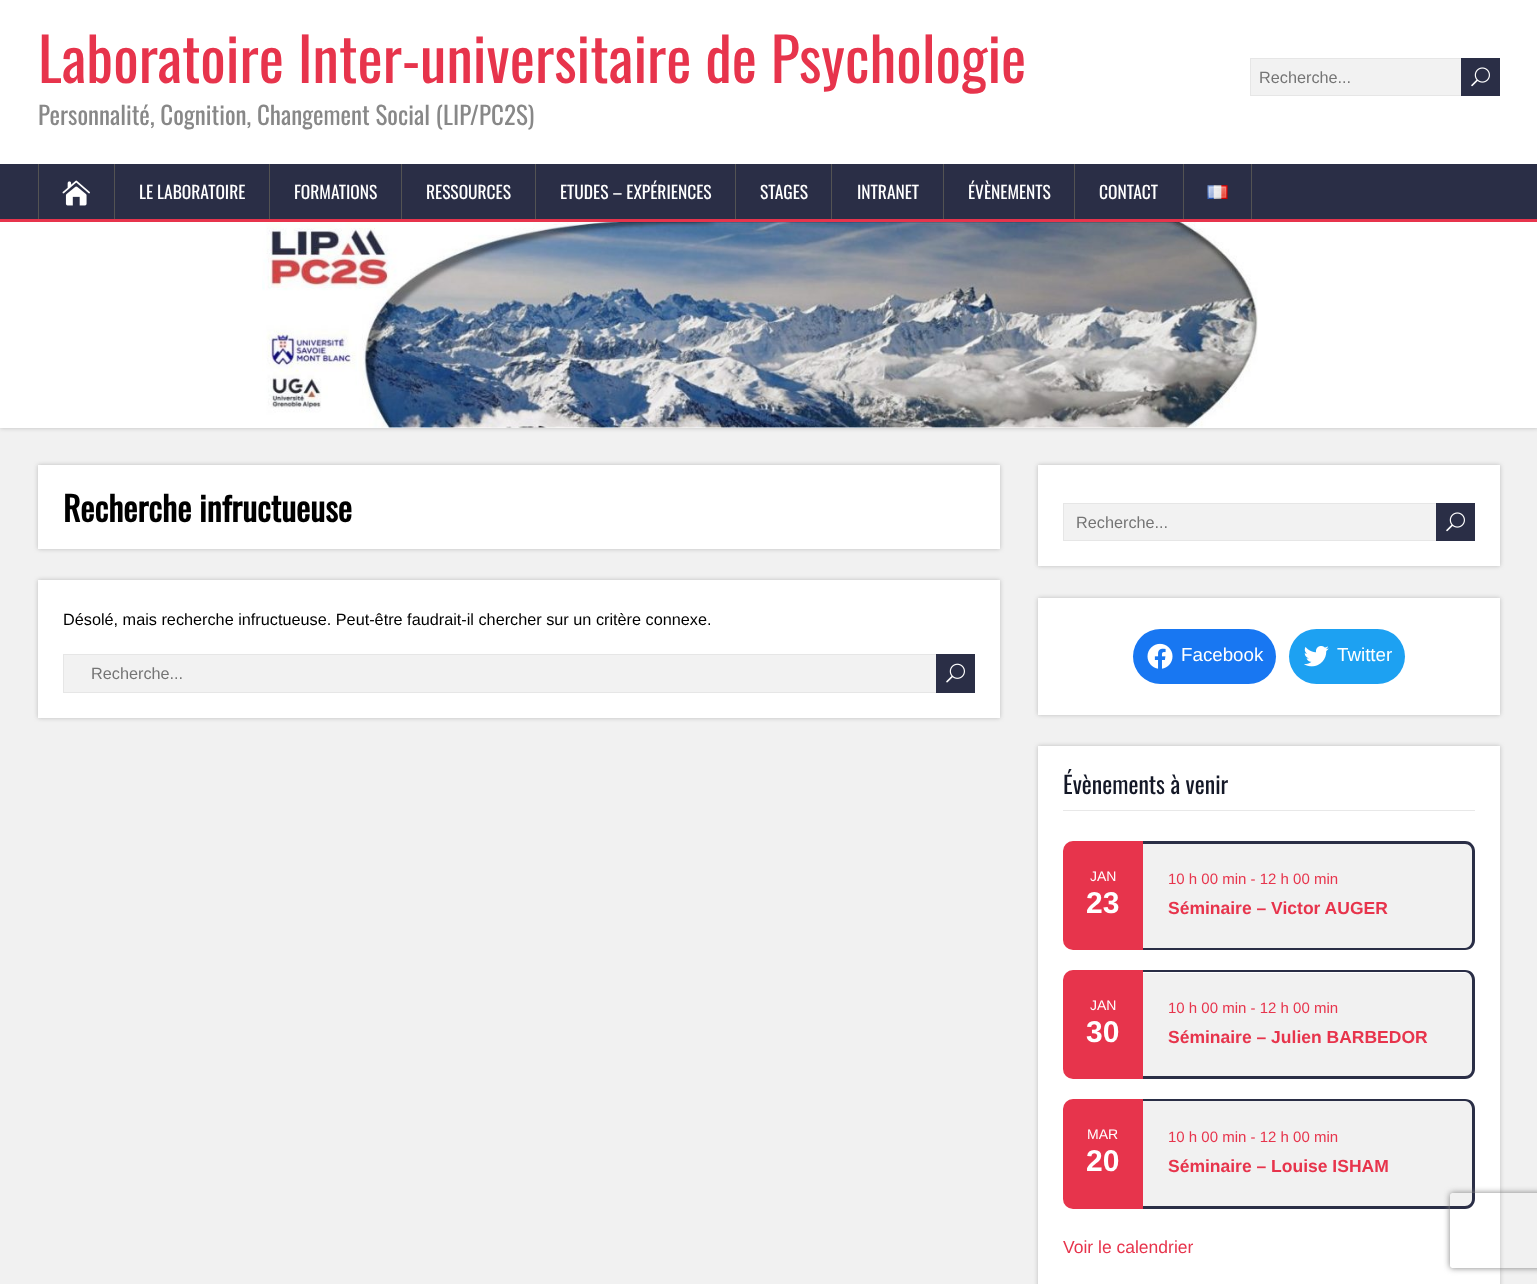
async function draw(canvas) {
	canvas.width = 1537;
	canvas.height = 1284;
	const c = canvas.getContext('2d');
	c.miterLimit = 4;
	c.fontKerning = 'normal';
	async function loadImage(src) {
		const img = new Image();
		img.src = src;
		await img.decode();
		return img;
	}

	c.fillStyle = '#f1f1f1';
	c.fillRect(0, 0, 1537, 1284);
	c.fillStyle = '#bbb';
	c.filter = 'blur(2px)';
	c.beginPath();
	c.rect(0, -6, 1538, 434);
	c.fill();
	c.filter = 'none';
	c.fillStyle = '#fff';
	c.fillRect(0, 0, 1537, 428);
	c.font = '60px Oswald';
	c.fillStyle = '#e7344c';
	c.fillText('Laboratoire Inter-universitaire de Psychologie', 38, 83);
	c.fillStyle = '#f2f2f2';
	c.fillRect(1251, 59, 210, 36);
	c.strokeStyle = '#e6e6e6';
	c.strokeRect(1250.5, 58.5, 249, 37);
	c.font = '16.25px Liberation Sans';
	c.fillStyle = '#757575';
	c.fillText('Recherche...', 1259, 83);
	c.fillStyle = '#2a2e46';
	c.fillRect(1461, 58, 39, 38);
	c.drawImage(await loadImage('img1.png'), 1471, 67, 19, 20);
	c.font = '25px Oswald';
	c.fillStyle = '#888';
	c.fillText('Personnalité, Cognition, Changement Social (LIP/PC2S)', 38, 125);
	for (const [x, y, w, h, color] of [
		[0, 164, 1537, 55, '#2a2e46'],
		[0, 219, 1537, 3, '#e7344c'],
		[114, 164, 1, 55, '#535353'],
		[38, 164, 1, 55, '#535353'],
	]) {
		c.fillStyle = color;
		c.fillRect(x, y, w, h);
	}
	c.drawImage(await loadImage('img2.png'), 62, 180, 28, 26);
	c.fillRect(269, 164, 1, 55);
	c.font = '17.5px Oswald';
	c.fillStyle = '#fff';
	c.fillText('LE LABORATOIRE', 139, 199);
	c.fillStyle = '#535353';
	c.fillRect(401, 164, 1, 55);
	c.fillStyle = '#fff';
	c.fillText('FORMATIONS', 294, 199);
	c.fillStyle = '#535353';
	c.fillRect(535, 164, 1, 55);
	c.fillStyle = '#fff';
	c.fillText('RESSOURCES', 426, 199);
	c.fillStyle = '#535353';
	c.fillRect(735, 164, 1, 55);
	c.fillStyle = '#fff';
	c.fillText('ETUDES – EXPÉRIENCES', 560, 199);
	c.fillStyle = '#535353';
	c.fillRect(831, 164, 1, 55);
	c.fillStyle = '#fff';
	c.fillText('STAGES', 760, 199);
	c.fillStyle = '#535353';
	c.fillRect(943, 164, 1, 55);
	c.fillStyle = '#fff';
	c.fillText('INTRANET', 857, 199);
	c.fillStyle = '#535353';
	c.fillRect(1074, 164, 1, 55);
	c.fillStyle = '#fff';
	c.fillText('ÉVÈNEMENTS', 968, 199);
	c.fillStyle = '#535353';
	c.fillRect(1183, 164, 1, 55);
	c.fillStyle = '#fff';
	c.fillText('CONTACT', 1099, 199);
	c.fillStyle = '#535353';
	c.fillRect(1251, 164, 1, 55);
	c.drawImage(await loadImage('img3.png'), 1207, 185, 21, 14);
	c.drawImage(await loadImage('img4.png'), 262, 222, 996, 206);
	c.fillStyle = '#bbb';
	c.filter = 'blur(2px)';
	c.beginPath();
	c.rect(38, 465, 962, 84);
	c.fill();
	c.filter = 'none';
	c.fillStyle = '#fff';
	c.fillRect(38, 465, 962, 84);
	c.font = 'bold 33.75px Oswald';
	c.fillStyle = '#000';
	c.fillText('Recherche infructueuse', 63, 522);
	c.fillStyle = '#bbb';
	c.filter = 'blur(2px)';
	c.beginPath();
	c.rect(38, 580, 962, 138);
	c.fill();
	c.filter = 'none';
	c.fillStyle = '#fff';
	c.fillRect(38, 580, 962, 138);
	c.font = '16.25px Liberation Sans';
	c.fillStyle = '#000';
	c.fillText('Désolé, mais recherche infructueuse. Peut-être faudrait-il chercher sur un critère connexe.', 63, 625);
	c.fillStyle = '#f2f2f2';
	c.fillRect(64, 655, 872, 37);
	c.strokeRect(63.5, 654.5, 905, 38);
	c.fillStyle = '#757575';
	c.fillText('Recherche...', 91, 679);
	c.fillStyle = '#2a2e46';
	c.fillRect(936, 654, 39, 39);
	c.drawImage(await loadImage('img5.png'), 946, 663, 19, 20);
	c.fillStyle = '#bbb';
	c.filter = 'blur(2px)';
	c.beginPath();
	c.rect(1038, 465, 462, 101);
	c.fill();
	c.filter = 'none';
	c.fillStyle = '#fff';
	c.fillRect(1038, 465, 462, 101);
	c.fillStyle = '#f2f2f2';
	c.fillRect(1064, 504, 372, 36);
	c.strokeRect(1063.5, 503.5, 410, 37);
	c.fillStyle = '#757575';
	c.fillText('Recherche...', 1076, 528);
	c.fillStyle = '#2a2e46';
	c.fillRect(1436, 503, 39, 38);
	c.drawImage(await loadImage('img1.png'), 1446, 512, 19, 20);
	c.fillStyle = '#bbb';
	c.filter = 'blur(2px)';
	c.beginPath();
	c.rect(1038, 598, 462, 117);
	c.fill();
	c.filter = 'none';
	c.fillStyle = '#fff';
	c.fillRect(1038, 598, 462, 117);
	c.fillStyle = '#1877f2';
	c.beginPath();
	c.roundRect(1133, 629, 143, 55, 27.5);
	c.fill();
	c.drawImage(await loadImage('img6.png'), 1147, 643, 26, 26);
	c.font = '18.75px Liberation Sans';
	c.fillStyle = '#fff';
	c.fillText('Facebook', 1181, 661);
	c.fillStyle = '#1da1f2';
	c.beginPath();
	c.roundRect(1289, 629, 116, 55, 27.5);
	c.fill();
	c.drawImage(await loadImage('img7.png'), 1304, 646, 25, 21);
	c.fillStyle = '#fff';
	c.fillText('Twitter', 1337, 661);
	c.fillStyle = '#bbb';
	c.filter = 'blur(2px)';
	c.beginPath();
	c.rect(1038, 746, 462, 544);
	c.fill();
	c.filter = 'none';
	c.fillStyle = '#fff';
	c.fillRect(1038, 746, 462, 538);
	c.fillStyle = '#e8e8e8';
	c.fillRect(1063, 810, 412, 1);
	c.font = '23.75px Oswald';
	c.fillStyle = '#141827';
	c.fillText('Évènements à venir', 1063, 794);
	c.fillStyle = '#f1f1f1';
	c.beginPath();
	c.roundRect(1143, 844, 330, 104, [0, 8, 8, 0]);
	c.fill();
	c.fillStyle = '#2a2e46';
	c.beginPath();
	c.moveTo(1142, 841);
	c.lineTo(1465, 841);
	c.bezierCurveTo(1471, 841, 1475, 846, 1475, 851);
	c.lineTo(1475, 940);
	c.bezierCurveTo(1475, 946, 1471, 950, 1465, 950);
	c.lineTo(1142, 950);
	c.closePath();
	c.moveTo(1142, 844);
	c.lineTo(1465, 844);
	c.bezierCurveTo(1469, 844, 1472, 847, 1472, 851);
	c.lineTo(1472, 940);
	c.bezierCurveTo(1472, 944, 1469, 948, 1465, 948);
	c.lineTo(1142, 948);
	c.closePath();
	c.fill('evenodd');
	c.fillStyle = '#e7344c';
	c.beginPath();
	c.roundRect(1063, 841, 80, 109, [10, 0, 0, 10]);
	c.fill();
	c.font = '14px Liberation Sans';
	c.fillStyle = '#fff';
	c.fillText('JAN', 1090, 881);
	c.font = 'bold 30px Liberation Sans';
	c.fillText('23', 1086, 913);
	c.font = '15px Liberation Sans';
	c.fillStyle = '#e7344c';
	c.fillText('10 h 00 min - 12 h 00 min', 1168, 884);
	c.font = 'bold 17.5px Liberation Sans';
	c.fillText('Séminaire – Victor AUGER', 1168, 914);
	c.fillStyle = '#f1f1f1';
	c.beginPath();
	c.roundRect(1143, 973, 330, 103, [0, 8, 8, 0]);
	c.fill();
	c.fillStyle = '#2a2e46';
	c.beginPath();
	c.moveTo(1142, 970);
	c.lineTo(1465, 970);
	c.bezierCurveTo(1471, 970, 1475, 974, 1475, 980);
	c.lineTo(1475, 1069);
	c.bezierCurveTo(1475, 1074, 1471, 1079, 1465, 1079);
	c.lineTo(1142, 1079);
	c.closePath();
	c.moveTo(1142, 972);
	c.lineTo(1465, 972);
	c.bezierCurveTo(1469, 972, 1472, 976, 1472, 980);
	c.lineTo(1472, 1069);
	c.bezierCurveTo(1472, 1073, 1469, 1076, 1465, 1076);
	c.lineTo(1142, 1076);
	c.closePath();
	c.fill('evenodd');
	c.fillStyle = '#e7344c';
	c.beginPath();
	c.roundRect(1063, 970, 80, 109, [10, 0, 0, 10]);
	c.fill();
	c.font = '14px Liberation Sans';
	c.fillStyle = '#fff';
	c.fillText('JAN', 1090, 1010);
	c.font = 'bold 30px Liberation Sans';
	c.fillText('30', 1086, 1042);
	c.font = '15px Liberation Sans';
	c.fillStyle = '#e7344c';
	c.fillText('10 h 00 min - 12 h 00 min', 1168, 1013);
	c.font = 'bold 17.5px Liberation Sans';
	c.fillText('Séminaire – Julien BARBEDOR', 1168, 1043);
	c.fillStyle = '#f1f1f1';
	c.beginPath();
	c.roundRect(1143, 1101, 330, 105, [0, 8, 8, 0]);
	c.fill();
	c.fillStyle = '#2a2e46';
	c.beginPath();
	c.moveTo(1142, 1099);
	c.lineTo(1465, 1099);
	c.bezierCurveTo(1471, 1099, 1475, 1103, 1475, 1109);
	c.lineTo(1475, 1199);
	c.bezierCurveTo(1475, 1204, 1471, 1209, 1465, 1209);
	c.lineTo(1142, 1209);
	c.closePath();
	c.moveTo(1142, 1101);
	c.lineTo(1465, 1101);
	c.bezierCurveTo(1469, 1101, 1472, 1105, 1472, 1109);
	c.lineTo(1472, 1199);
	c.bezierCurveTo(1472, 1203, 1469, 1206, 1465, 1206);
	c.lineTo(1142, 1206);
	c.closePath();
	c.fill('evenodd');
	c.fillStyle = '#e7344c';
	c.beginPath();
	c.roundRect(1063, 1099, 80, 110, [10, 0, 0, 10]);
	c.fill();
	c.font = '14px Liberation Sans';
	c.fillStyle = '#fff';
	c.fillText('MAR', 1087, 1139);
	c.font = 'bold 30px Liberation Sans';
	c.fillText('20', 1086, 1171);
	c.font = '15px Liberation Sans';
	c.fillStyle = '#e7344c';
	c.fillText('10 h 00 min - 12 h 00 min', 1168, 1142);
	c.font = 'bold 17.5px Liberation Sans';
	c.fillText('Séminaire – Louise ISHAM', 1168, 1172);
	c.font = '17.5px Liberation Sans';
	c.fillText('Voir le calendrier', 1063, 1253);
	c.save();
	c.beginPath();
	c.moveTo(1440, 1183);
	c.lineTo(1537, 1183);
	c.lineTo(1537, 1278);
	c.lineTo(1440, 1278);
	c.closePath();
	c.moveTo(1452.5, 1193);
	c.lineTo(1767.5, 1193);
	c.bezierCurveTo(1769, 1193, 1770, 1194, 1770, 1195.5);
	c.lineTo(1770, 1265.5);
	c.bezierCurveTo(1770, 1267, 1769, 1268, 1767.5, 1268);
	c.lineTo(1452.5, 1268);
	c.bezierCurveTo(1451, 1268, 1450, 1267, 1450, 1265.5);
	c.lineTo(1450, 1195.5);
	c.bezierCurveTo(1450, 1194, 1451, 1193, 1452.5, 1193);
	c.closePath();
	c.clip('evenodd');
	c.fillStyle = '#808080';
	c.filter = 'blur(3px)';
	c.beginPath();
	c.roundRect(1450, 1193, 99, 75, 2.5);
	c.fill();
	c.filter = 'none';
	c.restore();
}

draw(document.querySelector('canvas'));
